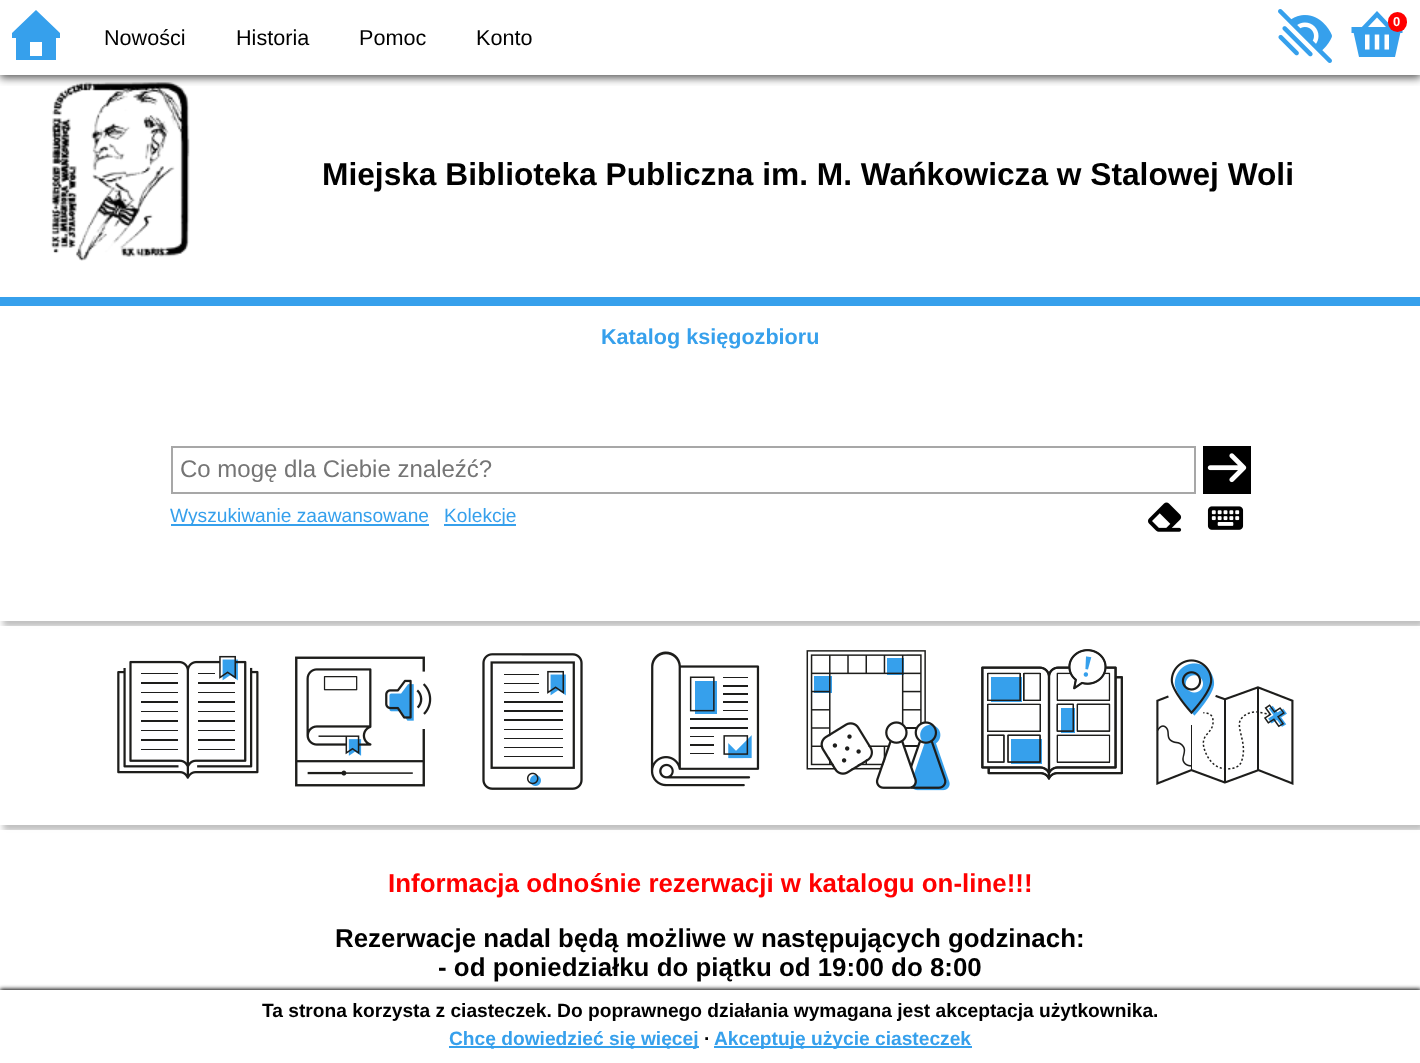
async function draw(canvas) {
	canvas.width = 1420;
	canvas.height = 1063;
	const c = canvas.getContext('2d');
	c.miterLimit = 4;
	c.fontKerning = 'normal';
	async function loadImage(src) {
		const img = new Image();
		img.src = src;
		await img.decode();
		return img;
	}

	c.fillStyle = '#fff';
	c.fillRect(0, 0, 1420, 1063);
	c.drawImage(await loadImage('img3.png'), 51, 82, 139, 179);
	c.save();
	c.beginPath();
	c.rect(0, 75, 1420, 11);
	c.clip();
	c.fillStyle = '#000000a6';
	c.filter = 'blur(4.5px)';
	c.beginPath();
	c.rect(0, 3, 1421, 75);
	c.fill();
	c.filter = 'none';
	c.restore();
	c.drawImage(await loadImage('img1.png'), 1278, 9, 54, 54);
	c.drawImage(await loadImage('img2.png'), 1351, 11, 52, 46);
	c.fillStyle = '#f00';
	c.beginPath();
	c.roundRect(1388, 12, 19, 20, 9.5);
	c.fill();
	c.font = 'bold 13px Liberation Sans';
	c.fillStyle = '#fff';
	c.fillText('0', 1393, 26);
	c.fillStyle = '#36a0ec';
	c.beginPath();
	c.moveTo(60, 38);
	c.lineTo(56, 38);
	c.lineTo(56, 60);
	c.lineTo(16, 60);
	c.lineTo(16, 38);
	c.lineTo(12, 38);
	c.lineTo(12, 33);
	c.lineTo(36, 10);
	c.lineTo(60, 33);
	c.closePath();
	c.moveTo(42, 56);
	c.lineTo(42, 42);
	c.lineTo(30, 42);
	c.lineTo(30, 56);
	c.closePath();
	c.fill();
	c.font = '21.6px Liberation Sans';
	c.fillStyle = '#000';
	for (const [text, x, y] of [
		['Nowości', 104, 45],
		['Historia', 236, 45],
		['Pomoc', 359, 45],
		['Konto', 476, 45],
	]) {
		c.fillText(text, x, y);
	}
	c.font = 'bold 31.7px Liberation Sans';
	c.fillText('Miejska Biblioteka Publiczna im. M. Wańkowicza w Stalowej Woli', 322, 185);
	c.save();
	c.beginPath();
	c.rect(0, 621, 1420, 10);
	c.clip();
	c.fillStyle = '#00000040';
	c.filter = 'blur(3px)';
	c.beginPath();
	c.rect(3, 303, 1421, 324);
	c.fill();
	c.filter = 'none';
	c.restore();
	c.fillStyle = '#36a0ec';
	c.fillRect(0, 297, 1420, 9);
	c.font = 'bold 21.6px Liberation Sans';
	c.fillText('Katalog księgozbioru', 601, 344);
	c.strokeStyle = '#a7a7a7';
	c.lineWidth = 2;
	c.strokeRect(172, 447, 1023, 46);
	c.font = '24px Liberation Sans';
	c.fillStyle = '#757575';
	c.fillText('Co mogę dla Ciebie znaleźć?', 180, 477);
	c.fillStyle = '#000';
	c.fillRect(1203, 446, 48, 48);
	c.drawImage(await loadImage('img4.png'), 1207, 453, 40, 30);
	c.fillStyle = '#36a0ec';
	c.fillRect(171, 524, 258, 2);
	c.font = '19.2px Liberation Sans';
	c.fillText('Wyszukiwanie zaawansowane', 170, 522);
	c.fillRect(444, 524, 72, 2);
	c.fillText('Kolekcje', 444, 522);
	c.drawImage(await loadImage('img5.png'), 1148, 502, 34, 30);
	c.drawImage(await loadImage('img6.png'), 1207, 506, 37, 24);
	c.save();
	c.beginPath();
	c.rect(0, 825, 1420, 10);
	c.clip();
	c.fillStyle = '#00000040';
	c.filter = 'blur(3px)';
	c.beginPath();
	c.rect(3, 632, 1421, 199);
	c.fill();
	c.filter = 'none';
	c.restore();
	c.fillStyle = '#fffffff2';
	c.fillRect(0, 626, 1420, 6);
	c.drawImage(await loadImage('img7.png'), 117, 655, 142, 124);
	c.drawImage(await loadImage('img8.png'), 295, 656, 137, 131);
	c.drawImage(await loadImage('img9.png'), 482, 653, 101, 137);
	c.drawImage(await loadImage('img10.png'), 650, 651, 110, 136);
	c.drawImage(await loadImage('img11.png'), 806, 650, 144, 141);
	c.drawImage(await loadImage('img12.png'), 981, 649, 142, 131);
	c.drawImage(await loadImage('img13.png'), 1156, 659, 138, 126);
	c.fillRect(0, 830, 1420, 6);
	c.font = 'bold 25.9px Liberation Sans';
	c.fillStyle = '#f00';
	c.fillText('Informacja odnośnie rezerwacji w katalogu on-line!!!', 388, 892);
	c.fillStyle = '#000';
	c.fillText('Rezerwacje nadal będą możliwe w następujących godzinach:', 335, 947);
	c.fillText('- od poniedziałku do piątku od 19:00 do 8:00', 438, 976);
	c.filter = 'blur(2px)';
	c.beginPath();
	c.rect(0, 989, 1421, 73);
	c.fill();
	c.filter = 'none';
	c.fillStyle = '#fff';
	c.fillRect(0, 990, 1420, 73);
	c.font = 'bold 19.2px Liberation Sans';
	c.fillStyle = '#000';
	c.fillText('Ta strona korzysta z ciasteczek. Do poprawnego działania wymagana jest akceptacja użytkownika.', 262, 1017);
	c.fillStyle = '#36a0ec';
	c.fillRect(449, 1046, 250, 2);
	c.fillText('Chcę dowiedzieć się więcej', 449, 1045);
	c.fillStyle = '#000';
	c.fillText('∙', 704, 1045);
	c.fillStyle = '#36a0ec';
	c.fillRect(714, 1046, 258, 2);
	c.fillText('Akceptuję użycie ciasteczek', 714, 1045);
}

draw(document.querySelector('canvas'));
